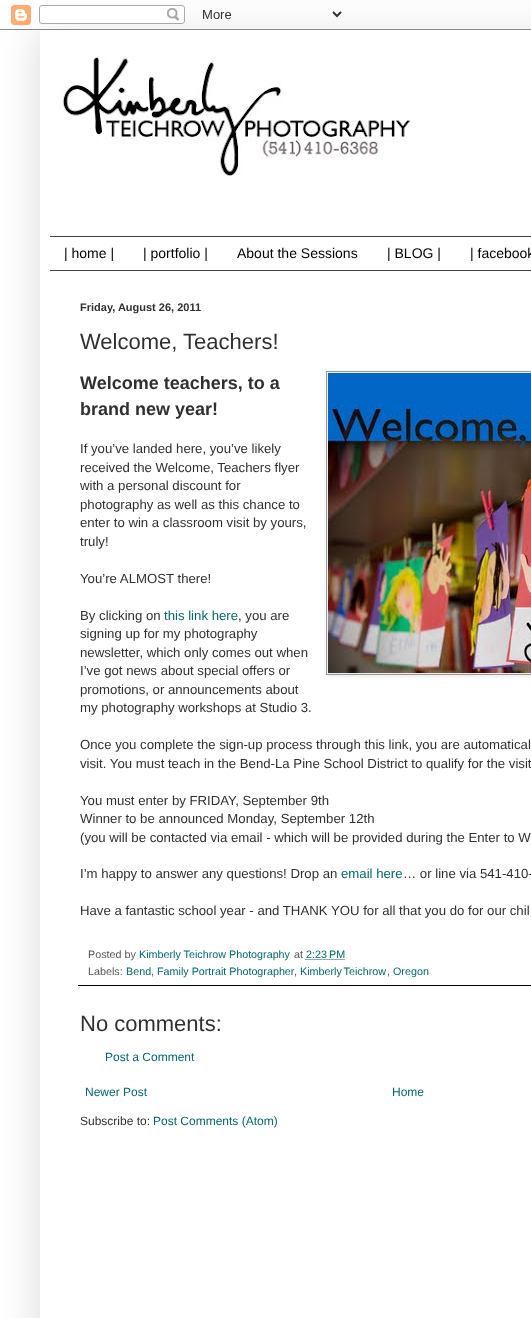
async function draw(canvas) {
	canvas.width = 531;
	canvas.height = 1318;
	const c = canvas.getContext('2d');
	c.miterLimit = 4;
	c.fontKerning = 'normal';
	async function loadImage(src) {
		const img = new Image();
		img.src = src;
		await img.decode();
		return img;
	}

	c.fillStyle = '#fff';
	c.fillRect(0, 0, 531, 1318);
	c.save();
	c.beginPath();
	c.moveTo(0, 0);
	c.lineTo(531, 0);
	c.lineTo(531, 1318);
	c.lineTo(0, 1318);
	c.closePath();
	c.moveTo(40, 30);
	c.lineTo(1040, 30);
	c.lineTo(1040, 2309);
	c.lineTo(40, 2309);
	c.closePath();
	c.clip('evenodd');
	c.fillStyle = '#00000026';
	c.filter = 'blur(20px)';
	c.beginPath();
	c.rect(40, 30, 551, 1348);
	c.fill();
	c.filter = 'none';
	c.restore();
	c.drawImage(await loadImage('img1.png'), 0, 5, 531, 25);
	c.drawImage(await loadImage('img2.png'), 58, 57, 352, 120);
	c.fillStyle = '#404040';
	c.fillRect(50, 236, 481, 1);
	c.fillRect(50, 270, 481, 1);
	c.font = '14px Liberation Sans';
	c.fillStyle = '#000';
	for (const [text, x, y] of [
		['| home |', 64, 258],
		['| portfolio |', 143, 258],
		['About the Sessions', 237, 258],
		['| BLOG |', 387, 258],
		['| facebook', 470, 258],
	]) {
		c.fillText(text, x, y);
	}
	c.font = 'bold 11px Liberation Sans';
	c.fillStyle = '#303030';
	c.fillText('Friday, August 26, 2011', 80, 311);
	c.font = '22px Liberation Sans';
	c.fillText('Welcome, Teachers!', 80, 349);
	c.font = 'bold 18px Liberation Sans';
	c.fillText('Welcome teachers, to a', 80, 389);
	c.fillText('brand new year!', 80, 415);
	c.fillStyle = '#0000001a';
	c.filter = 'blur(2.5px)';
	c.beginPath();
	c.rect(327, 372, 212, 304);
	c.fill();
	c.filter = 'none';
	c.strokeStyle = '#999';
	c.strokeRect(326.5, 371.5, 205, 303);
	c.drawImage(await loadImage('img3.png'), 328, 373, 203, 300);
	c.font = '13.2px Liberation Sans';
	c.fillStyle = '#303030';
	for (const [text, x, y] of [
		['If you’ve landed here, you’ve likely', 80, 453],
		['received the Welcome, Teachers flyer', 80, 472],
		['with a personal discount for', 80, 490],
		['photography as well as this chance to', 80, 509],
		['enter to win a classroom visit by yours,', 80, 527],
		['truly!', 80, 546],
		['You’re ALMOST there!', 80, 583],
		['By clicking on', 80, 620],
	]) {
		c.fillText(text, x, y);
	}
	c.fillStyle = '#00696e';
	c.fillText('this link here', 164, 620);
	c.fillStyle = '#303030';
	for (const [text, x, y] of [
		[', you are', 238, 620],
		['signing up for my photography', 80, 638],
		['newsletter, which only comes out when', 80, 657],
		['I’ve got news about special offers or', 80, 675],
		['promotions, or announcements about', 80, 694],
		['my photography workshops at Studio 3.', 80, 712],
		['Once you complete the sign-up process through this link, you are automatical', 80, 749],
		['visit. You must teach in the Bend-La Pine School District to qualify for the visit', 80, 768],
		['You must enter by FRIDAY, September 9th', 80, 805],
		['Winner to be announced Monday, September 12th', 80, 823],
		['(you will be contacted via email - which will be provided during the Enter to W', 80, 842],
		['I’m happy to answer any questions! Drop an', 80, 878],
	]) {
		c.fillText(text, x, y);
	}
	c.fillStyle = '#00696e';
	c.fillText('email here', 341, 878);
	c.fillStyle = '#303030';
	c.fillText('… or line via 541-410-', 403, 878);
	c.fillText('Have a fantastic school year - and THANK YOU for all that you do for our chil', 80, 915);
	c.fillStyle = '#000';
	c.fillRect(78, 985, 453, 1);
	c.font = '10.75px Liberation Sans';
	c.fillStyle = '#555';
	c.fillText('Posted by', 88, 958);
	c.fillStyle = '#00696e';
	c.fillText('Kimberly Teichrow Photography', 139, 958);
	c.fillStyle = '#555';
	c.fillText('at', 294, 958);
	c.fillStyle = '#00696e';
	c.fillText('2:23 PM', 306, 958);
	c.beginPath();
	c.moveTo(305.5, 959.5);
	c.lineTo(345, 959.5);
	c.strokeStyle = '#00696e';
	c.setLineDash([1, 1]);
	c.stroke();
	c.fillStyle = '#555';
	c.fillText('Labels:', 88, 975);
	c.fillStyle = '#00696e';
	c.fillText('Bend', 126, 975);
	c.fillStyle = '#555';
	c.fillText(',', 151, 975);
	c.fillStyle = '#00696e';
	c.fillText('Family Portrait Photographer', 157, 975);
	c.fillStyle = '#555';
	c.fillText(',', 294, 975);
	c.wordSpacing = '-1px';
	c.fillStyle = '#00696e';
	c.fillText('Kimberly Teichrow', 300, 975);
	c.wordSpacing = '0px';
	c.fillStyle = '#555';
	c.fillText(',', 387, 975);
	c.fillStyle = '#00696e';
	c.fillText('Oregon', 393, 975);
	c.font = '22px Liberation Sans';
	c.fillStyle = '#303030';
	c.fillText('No comments:', 80, 1031);
	c.font = '12px Liberation Sans';
	c.fillStyle = '#00696e';
	for (const [text, x, y] of [
		['Post a Comment', 105, 1061],
		['Newer Post', 85, 1096],
		['Home', 392, 1096],
	]) {
		c.fillText(text, x, y);
	}
	c.fillStyle = '#303030';
	c.fillText('Subscribe to:', 80, 1125);
	c.fillStyle = '#00696e';
	c.fillText('Post Comments (Atom)', 153, 1125);
}

draw(document.querySelector('canvas'));
